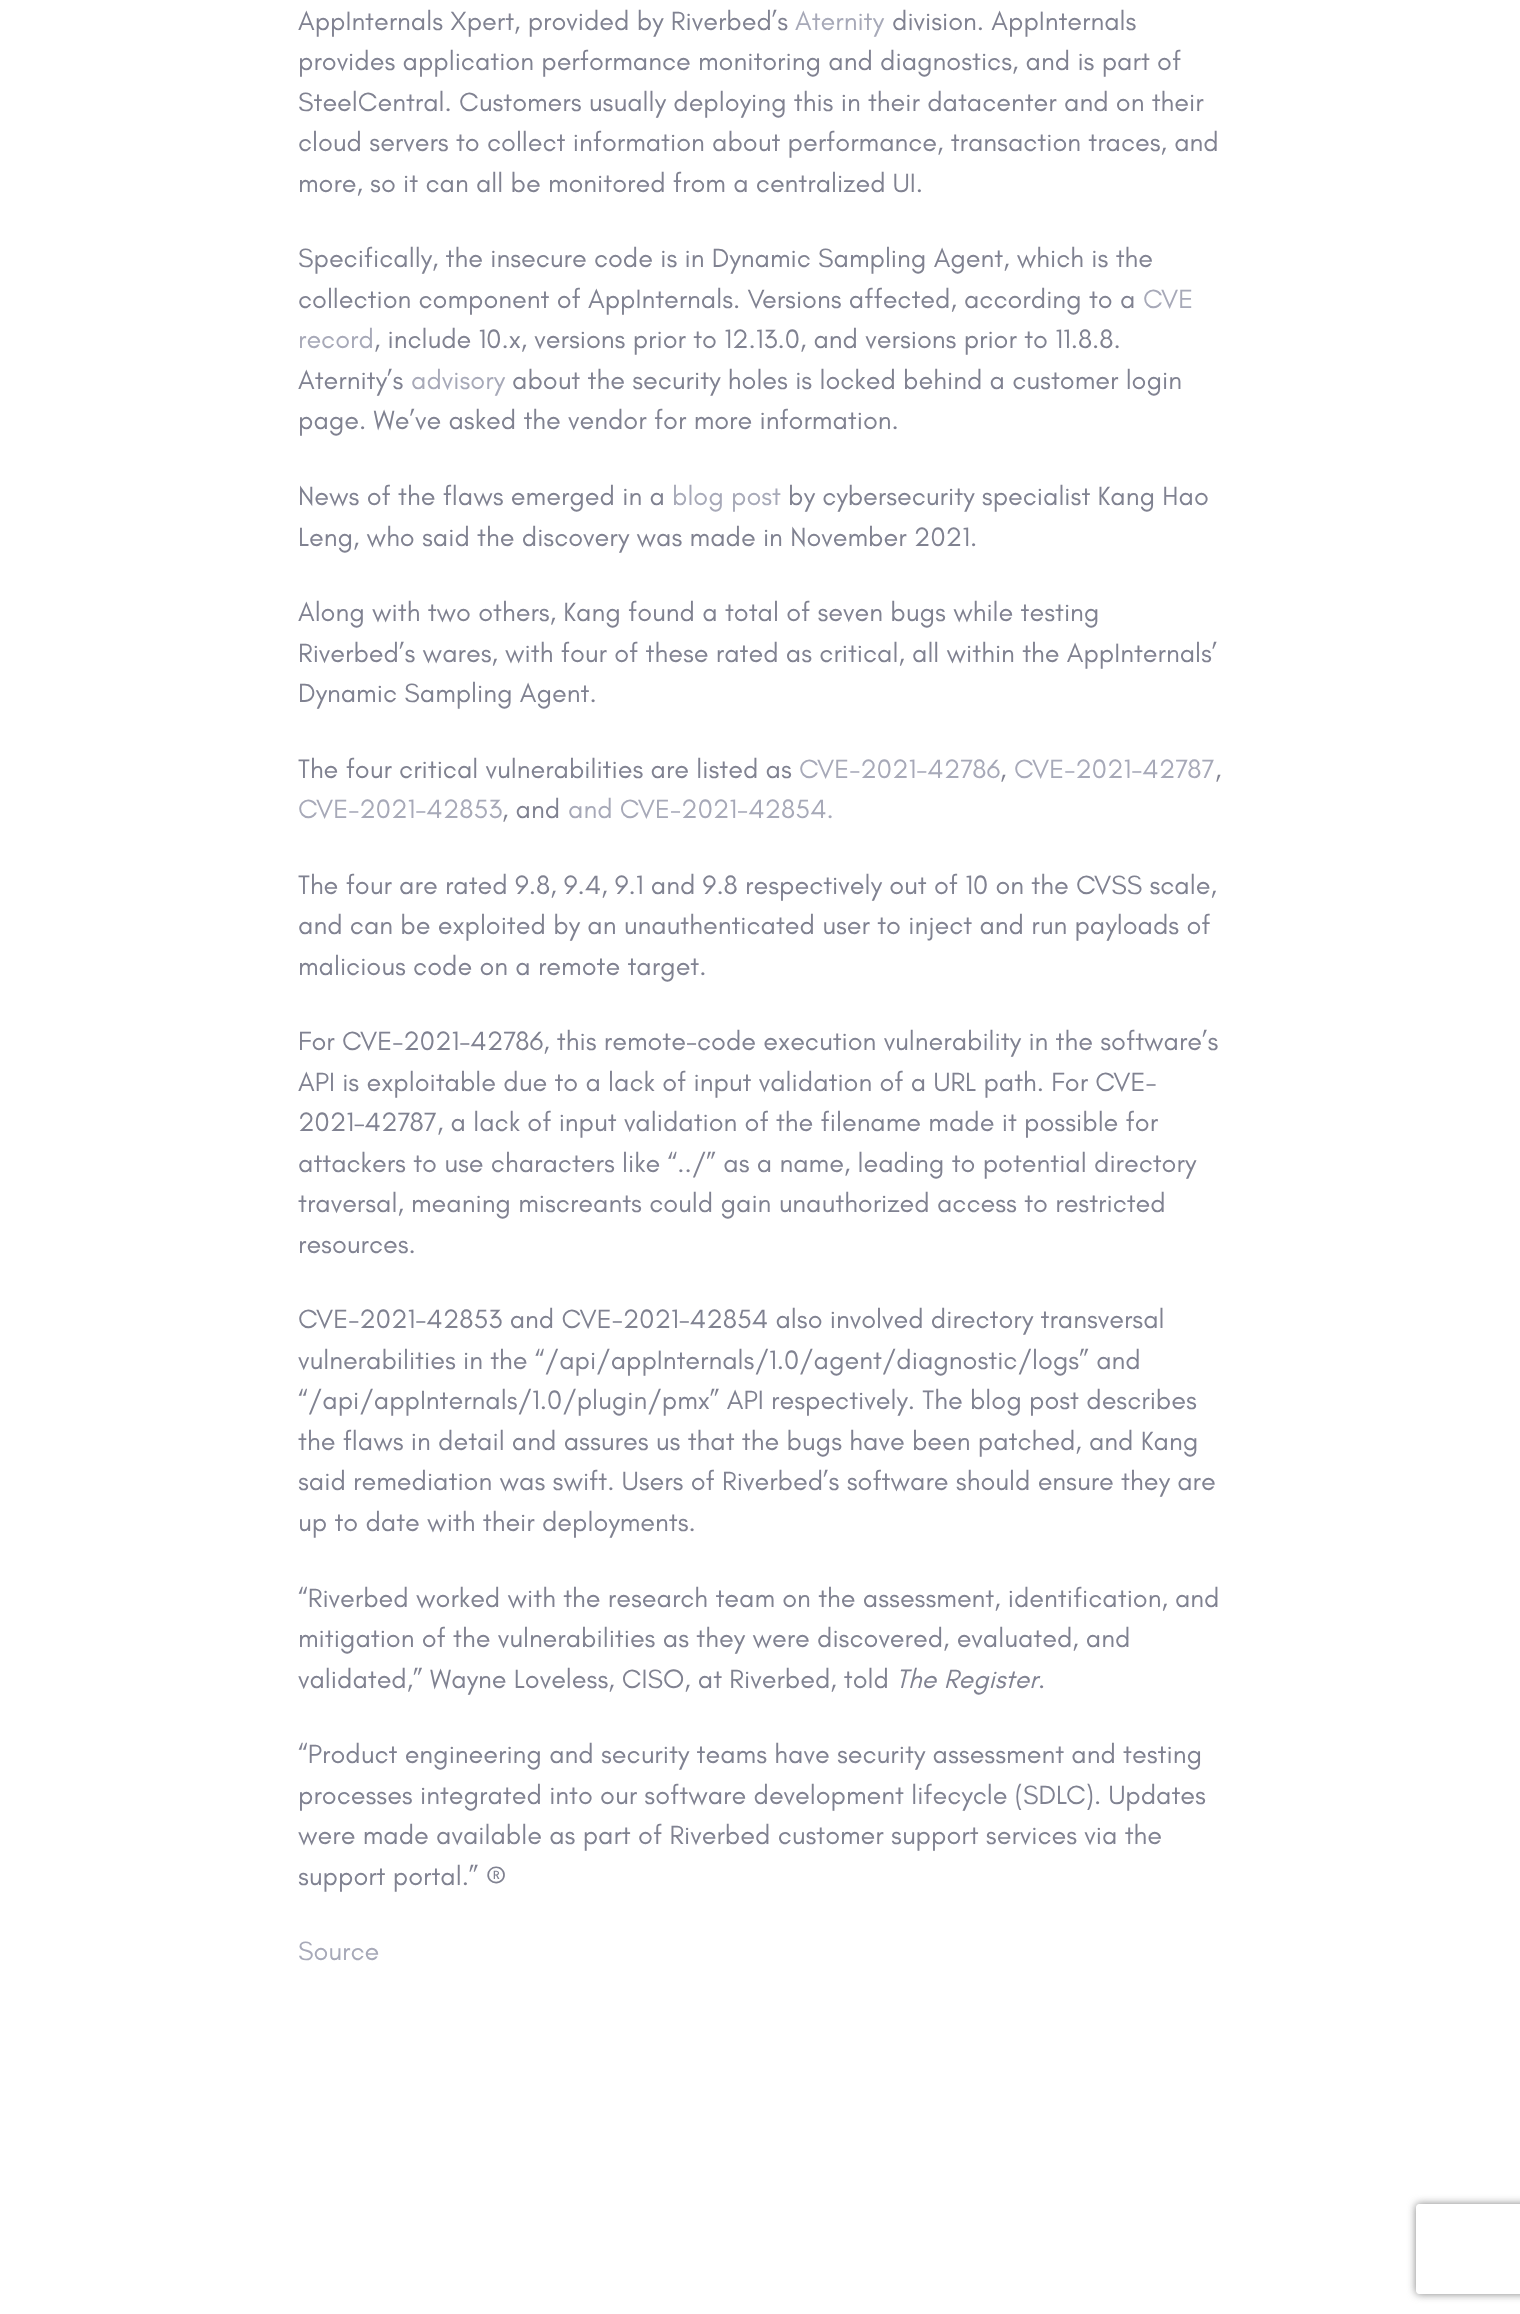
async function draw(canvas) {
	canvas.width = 1520;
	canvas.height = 2314;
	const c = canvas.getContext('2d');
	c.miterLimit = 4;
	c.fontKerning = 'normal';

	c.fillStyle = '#fff';
	c.fillRect(0, 0, 1520, 2314);
	c.font = '27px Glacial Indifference';
	c.fillStyle = '#808291';
	c.fillText('AppInternals Xpert, provided by Riverbed’s', 298, 30);
	c.fillStyle = '#a7a9b8';
	c.fillText('Aternity', 795, 30);
	c.fillStyle = '#808291';
	for (const [text, x, y] of [
		['division. AppInternals', 892, 30],
		['provides application performance monitoring and diagnostics, and is part of', 298, 70],
		['SteelCentral. Customers usually deploying this in their datacenter and on their', 298, 111],
		['cloud servers to collect information about performance, transaction traces, and', 298, 151],
		['more, so it can all be monitored from a centralized UI.', 298, 192],
		['Specifically, the insecure code is in Dynamic Sampling Agent, which is the', 298, 267],
		['collection component of AppInternals. Versions affected, according to a', 298, 308],
	]) {
		c.fillText(text, x, y);
	}
	c.fillStyle = '#a7a9b8';
	c.fillText('CVE', 1143, 308);
	c.fillText('record', 298, 348);
	c.fillStyle = '#808291';
	c.fillText(', include 10.x, versions prior to 12.13.0, and versions prior to 11.8.8.', 374, 348);
	c.fillText('Aternity’s', 298, 389);
	c.fillStyle = '#a7a9b8';
	c.fillText('advisory', 411, 389);
	c.fillStyle = '#808291';
	for (const [text, x, y] of [
		['about the security holes is locked behind a customer login', 512, 389],
		['page. We’ve asked the vendor for more information.', 298, 429],
		['News of the flaws emerged in a', 298, 505],
	]) {
		c.fillText(text, x, y);
	}
	c.fillStyle = '#a7a9b8';
	c.fillText('blog post', 672, 505);
	c.fillStyle = '#808291';
	for (const [text, x, y] of [
		['by cybersecurity specialist Kang Hao', 788, 505],
		['Leng, who said the discovery was made in November 2021.', 298, 546],
		['Along with two others, Kang found a total of seven bugs while testing', 298, 621],
		['Riverbed’s wares, with four of these rated as critical, all within the AppInternals’', 298, 662],
		['Dynamic Sampling Agent.', 298, 702],
		['The four critical vulnerabilities are listed as', 298, 778],
	]) {
		c.fillText(text, x, y);
	}
	c.fillStyle = '#a7a9b8';
	c.fillText('CVE-2021-42786', 799, 778);
	c.fillStyle = '#808291';
	c.fillText(',', 1000, 778);
	c.fillStyle = '#a7a9b8';
	c.fillText('CVE-2021-42787', 1014, 778);
	c.fillStyle = '#808291';
	c.fillText(',', 1215, 778);
	c.fillStyle = '#a7a9b8';
	c.fillText('CVE-2021-42853', 298, 818);
	c.fillStyle = '#808291';
	c.fillText(', and', 502, 818);
	c.fillStyle = '#a7a9b8';
	c.fillText('and CVE-2021-42854.', 568, 818);
	c.fillStyle = '#808291';
	for (const [text, x, y] of [
		['The four are rated 9.8, 9.4, 9.1 and 9.8 respectively out of 10 on the CVSS scale,', 298, 894],
		['and can be exploited by an unauthenticated user to inject and run payloads of', 298, 934],
		['malicious code on a remote target.', 298, 975],
		['For CVE-2021-42786, this remote-code execution vulnerability in the software’s', 298, 1050],
		['API is exploitable due to a lack of input validation of a URL path. For CVE-', 298, 1091],
		['2021–42787, a lack of input validation of the filename made it possible for', 298, 1131],
		['attackers to use characters like “../” as a name, leading to potential directory', 298, 1172],
		['traversal, meaning miscreants could gain unauthorized access to restricted', 298, 1212],
		['resources.', 298, 1253],
		['CVE-2021-42853 and CVE-2021-42854 also involved directory transversal', 298, 1328],
		['vulnerabilities in the “/api/appInternals/1.0/agent/diagnostic/logs” and', 298, 1369],
		['“/api/appInternals/1.0/plugin/pmx” API respectively. The blog post describes', 298, 1409],
		['the flaws in detail and assures us that the bugs have been patched, and Kang', 298, 1450],
		['said remediation was swift. Users of Riverbed’s software should ensure they are', 298, 1490],
		['up to date with their deployments.', 298, 1531],
		['“Riverbed worked with the research team on the assessment, identification, and', 298, 1607],
		['mitigation of the vulnerabilities as they were discovered, evaluated, and', 298, 1647],
		['validated,” Wayne Loveless, CISO, at Riverbed, told', 298, 1688],
	]) {
		c.fillText(text, x, y);
	}
	c.font = 'italic 27px Glacial Indifference';
	c.fillText('The Register', 896, 1688);
	c.font = '27px Glacial Indifference';
	for (const [text, x, y] of [
		['.', 1038, 1688],
		['“Product engineering and security teams have security assessment and testing', 298, 1763],
		['processes integrated into our software development lifecycle (SDLC). Updates', 298, 1804],
		['were made available as part of Riverbed customer support services via the', 298, 1844],
		['support portal.” ®', 298, 1885],
	]) {
		c.fillText(text, x, y);
	}
	c.fillStyle = '#a7a9b8';
	c.fillText('Source', 298, 1960);
	c.save();
	c.beginPath();
	c.moveTo(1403, 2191);
	c.lineTo(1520, 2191);
	c.lineTo(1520, 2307);
	c.lineTo(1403, 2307);
	c.closePath();
	c.moveTo(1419, 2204);
	c.lineTo(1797, 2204);
	c.bezierCurveTo(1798.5, 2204, 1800, 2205.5, 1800, 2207);
	c.lineTo(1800, 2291);
	c.bezierCurveTo(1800, 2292.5, 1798.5, 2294, 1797, 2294);
	c.lineTo(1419, 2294);
	c.bezierCurveTo(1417.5, 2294, 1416, 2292.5, 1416, 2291);
	c.lineTo(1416, 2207);
	c.bezierCurveTo(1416, 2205.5, 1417.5, 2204, 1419, 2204);
	c.closePath();
	c.clip('evenodd');
	c.fillStyle = '#808080';
	c.filter = 'blur(4px)';
	c.beginPath();
	c.roundRect(1416, 2204, 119, 90, 3);
	c.fill();
	c.filter = 'none';
	c.restore();
}

draw(document.querySelector('canvas'));
